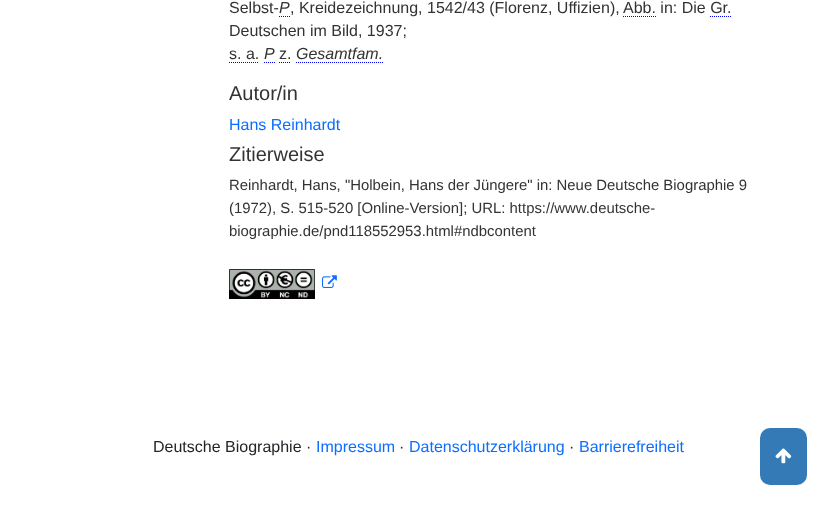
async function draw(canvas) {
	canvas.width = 837;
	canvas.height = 505;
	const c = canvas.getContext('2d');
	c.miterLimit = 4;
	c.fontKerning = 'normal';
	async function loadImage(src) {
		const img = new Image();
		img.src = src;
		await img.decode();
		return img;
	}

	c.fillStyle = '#fff';
	c.fillRect(0, 0, 837, 505);
	c.font = '16px Liberation Sans';
	c.fillStyle = '#333';
	c.fillText('Selbst-', 229, 13);
	c.font = 'italic 16px Liberation Sans';
	c.fillText('P', 279, 13);
	c.beginPath();
	c.moveTo(279, 16.5);
	c.lineTo(290, 16.5);
	c.strokeStyle = '#00f';
	c.setLineDash([1, 1]);
	c.stroke();
	c.font = '16px Liberation Sans';
	c.fillText(', Kreidezeichnung, 1542/43 (Florenz, Uffizien),', 290, 13);
	c.fillText('Abb. in: Die Gr.', 623, 13);
	c.beginPath();
	c.moveTo(623, 16.5);
	c.lineTo(656, 16.5);
	c.stroke();
	c.beginPath();
	c.moveTo(710, 16.5);
	c.lineTo(731, 16.5);
	c.stroke();
	c.fillText('Deutschen im Bild, 1937;', 229, 36);
	c.fillText('s. a.', 229, 59);
	c.beginPath();
	c.moveTo(229, 62.5);
	c.lineTo(259, 62.5);
	c.stroke();
	c.font = 'italic 16px Liberation Sans';
	c.fillText('P', 264, 59);
	c.beginPath();
	c.moveTo(264, 62.5);
	c.lineTo(275, 62.5);
	c.stroke();
	c.font = '16px Liberation Sans';
	c.fillText('z.', 279, 59);
	c.beginPath();
	c.moveTo(279, 62.5);
	c.lineTo(291, 62.5);
	c.stroke();
	c.font = 'italic 16px Liberation Sans';
	c.fillText('Gesamtfam.', 296, 59);
	c.beginPath();
	c.moveTo(296, 62.5);
	c.lineTo(383, 62.5);
	c.stroke();
	c.font = '20px Liberation Sans';
	c.fillText('Autor/in', 229, 100);
	c.font = '16px Liberation Sans';
	c.fillStyle = '#0d6efd';
	c.fillText('Hans Reinhardt', 229, 130);
	c.font = '20px Liberation Sans';
	c.fillStyle = '#333';
	c.fillText('Zitierweise', 229, 161);
	c.font = '14.9px Liberation Sans';
	for (const [text, x, y] of [
		['Reinhardt, Hans, "Holbein, Hans der Jüngere" in: Neue Deutsche Biographie 9', 229, 190],
		['(1972), S. 515-520 [Online-Version]; URL: https://www.deutsche-', 229, 213],
		['biographie.de/pnd118552953.html#ndbcontent', 229, 236],
	]) {
		c.fillText(text, x, y);
	}
	c.drawImage(await loadImage('img1.png'), 229, 269, 86, 30);
	c.drawImage(await loadImage('img2.png'), 322, 275, 15, 13);
	c.fillStyle = '#337ab7';
	c.beginPath();
	c.roundRect(760, 428, 47, 57, 10);
	c.fill();
	c.drawImage(await loadImage('img3.png'), 775, 448, 17, 16);
	c.font = '16px Liberation Sans';
	c.fillStyle = '#212529';
	c.fillText('Deutsche Biographie ·', 153, 452);
	c.fillStyle = '#0d6efd';
	c.fillText('Impressum', 316, 452);
	c.fillStyle = '#212529';
	c.fillText('·', 399, 452);
	c.fillStyle = '#0d6efd';
	c.fillText('Datenschutzerklärung', 409, 452);
	c.fillStyle = '#212529';
	c.fillText('·', 569, 452);
	c.fillStyle = '#0d6efd';
	c.fillText('Barrierefreiheit', 579, 452);
}

draw(document.querySelector('canvas'));
